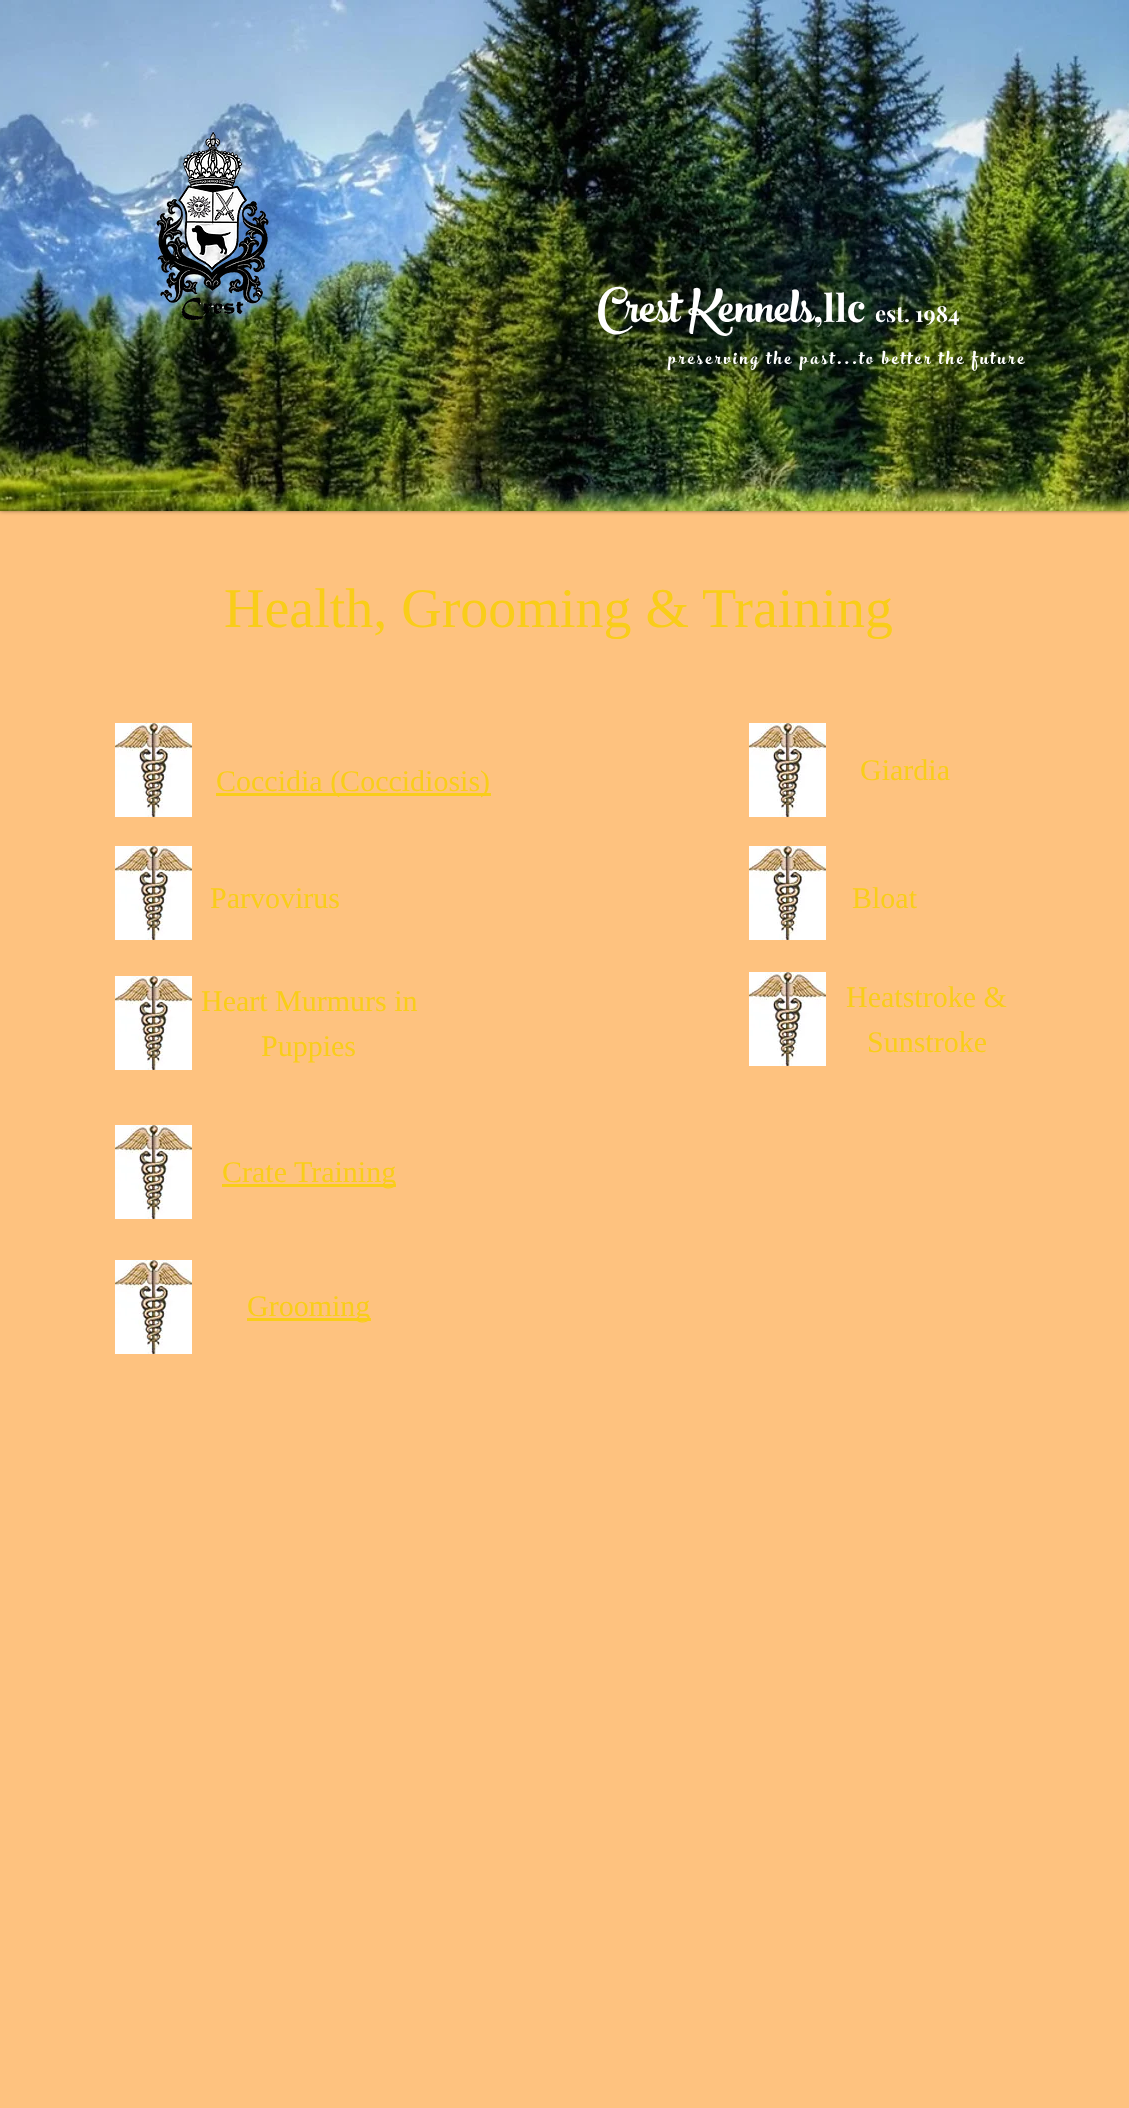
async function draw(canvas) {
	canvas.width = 1129;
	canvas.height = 2108;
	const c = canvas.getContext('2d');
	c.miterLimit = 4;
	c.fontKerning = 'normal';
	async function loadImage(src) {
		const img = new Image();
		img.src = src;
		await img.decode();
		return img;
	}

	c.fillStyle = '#fec27f';
	c.fillRect(0, 0, 1129, 2108);
	c.fillStyle = '#000000b3';
	c.filter = 'blur(2.5px)';
	c.beginPath();
	c.rect(0, 0, 1129, 510);
	c.fill();
	c.filter = 'none';
	c.drawImage(await loadImage('img1.png'), 0, 0, 1129, 511);
	c.drawImage(await loadImage('img2.png'), 156, 131, 113, 190);
	c.font = '69px "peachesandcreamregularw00"';
	c.fillStyle = '#fff';
	c.fillText('Crest Kennels', 598, 322);
	c.font = 'bold 38px Playfair Display';
	c.fillText(',llc', 813, 322);
	c.font = 'bold 22px Playfair Display';
	c.fillText('est. 1984', 875, 322);
	c.letterSpacing = '2.8px';
	c.font = '28px "peachesandcreamregularw00"';
	c.fillText('preserving the past...to better the future', 668, 364);
	c.letterSpacing = '0px';
	c.font = '56px Liberation Serif';
	c.fillStyle = '#f9cd19';
	c.fillText('Health, Grooming & Training', 224, 627);
	c.drawImage(await loadImage('img3.png'), 115, 723, 77, 94);
	c.fillRect(216, 793, 275, 3);
	c.font = '30px Liberation Serif';
	c.fillText('Coccidia (Coccidiosis)', 216, 791);
	c.drawImage(await loadImage('img3.png'), 749, 723, 77, 94);
	c.fillText('Giardia', 860, 780);
	c.drawImage(await loadImage('img3.png'), 115, 846, 77, 94);
	c.fillText('Parvovirus', 210, 908);
	c.drawImage(await loadImage('img3.png'), 749, 846, 77, 94);
	c.fillText('Bloat', 852, 908);
	c.drawImage(await loadImage('img3.png'), 115, 976, 77, 94);
	c.fillText('Heart Murmurs in', 201, 1011);
	c.fillText('Puppies', 261, 1056);
	c.drawImage(await loadImage('img3.png'), 749, 972, 77, 94);
	c.fillText('Heatstroke &', 846, 1007);
	c.fillText('Sunstroke', 867, 1052);
	c.drawImage(await loadImage('img3.png'), 115, 1125, 77, 94);
	c.fillRect(222, 1184, 174, 3);
	c.fillText('Crate Training', 222, 1182);
	c.drawImage(await loadImage('img3.png'), 115, 1260, 77, 94);
	c.fillRect(247, 1318, 124, 3);
	c.fillText('Grooming', 247, 1316);
}

draw(document.querySelector('canvas'));
